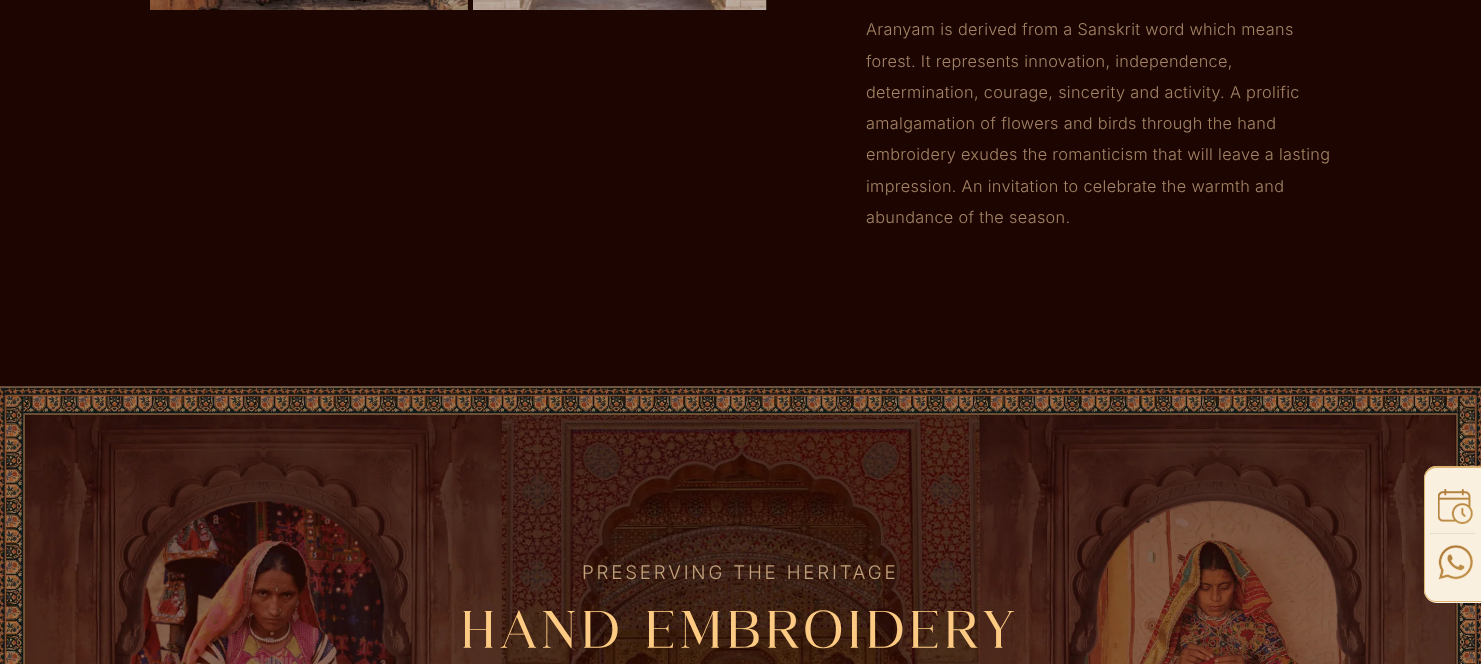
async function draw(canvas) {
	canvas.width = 1481;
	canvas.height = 664;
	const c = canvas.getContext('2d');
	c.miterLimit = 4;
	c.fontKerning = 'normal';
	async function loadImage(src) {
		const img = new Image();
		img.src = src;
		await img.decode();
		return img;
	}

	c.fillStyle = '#1d0502';
	c.fillRect(0, 0, 1481, 664);
	c.drawImage(await loadImage('img1.png'), 150, 0, 617, 10);
	c.letterSpacing = '0.33px';
	c.font = '300 16.25px Inter';
	c.fillStyle = '#a48566';
	for (const [text, x, y] of [
		['Aranyam is derived from a Sanskrit word which means', 866, 35],
		['forest. It represents innovation, independence,', 866, 67],
		['determination, courage, sincerity and activity. A prolific', 866, 98],
		['amalgamation of flowers and birds through the hand', 866, 129],
		['embroidery exudes the romanticism that will leave a lasting', 866, 160],
		['impression. An invitation to celebrate the warmth and', 866, 192],
		['abundance of the season.', 866, 223],
	]) {
		c.fillText(text, x, y);
	}
	c.drawImage(await loadImage('img2.png'), 0, 386, 1481, 278);
	c.letterSpacing = '2.8px';
	c.font = '300 18.75px Inter';
	c.fillStyle = '#c3a27c';
	c.fillText('PRESERVING THE HERITAGE', 582, 579);
	c.letterSpacing = '5.25px';
	c.font = '52.5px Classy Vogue';
	c.fillStyle = '#fcca83';
	c.fillText('HAND EMBROIDERY', 461, 648);
	c.fillStyle = '#faf0e0';
	c.beginPath();
	c.roundRect(1424, 466, 57, 137, [13, 0, 0, 13]);
	c.fill();
	c.fillStyle = '#ddb471';
	c.beginPath();
	c.moveTo(1436, 466);
	c.lineTo(1481, 466);
	c.lineTo(1481, 602);
	c.lineTo(1436, 602);
	c.bezierCurveTo(1429, 602, 1424, 597, 1424, 590);
	c.lineTo(1424, 479);
	c.bezierCurveTo(1424, 472, 1429, 466, 1436, 466);
	c.closePath();
	c.moveTo(1436, 468);
	c.lineTo(1481, 468);
	c.lineTo(1481, 601);
	c.lineTo(1436, 601);
	c.bezierCurveTo(1430, 601, 1425, 596, 1425, 590);
	c.lineTo(1425, 479);
	c.bezierCurveTo(1425, 473, 1430, 468, 1436, 468);
	c.closePath();
	c.fill('evenodd');
	c.drawImage(await loadImage('img3.png'), 1438, 489, 35, 36);
	c.fillStyle = '#e6ddd2';
	c.fillRect(1430, 533, 45, 1);
	c.drawImage(await loadImage('img4.png'), 1438, 545, 35, 35);
}

draw(document.querySelector('canvas'));
